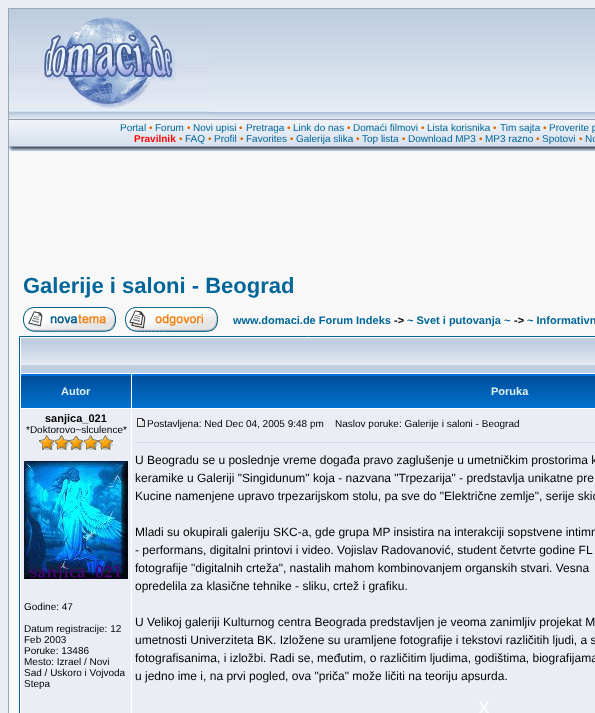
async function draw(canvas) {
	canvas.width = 595;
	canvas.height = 713;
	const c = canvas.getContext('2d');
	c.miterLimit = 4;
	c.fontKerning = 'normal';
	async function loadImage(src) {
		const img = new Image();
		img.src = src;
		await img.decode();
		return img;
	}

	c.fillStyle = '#eaedf4';
	c.fillRect(0, 0, 595, 713);
	c.fillStyle = '#98aab1';
	c.fillRect(8, 8, 587, 1);
	c.fillRect(8, 8, 1, 705);
	c.drawImage(await loadImage('img1.png'), 9, 9, 586, 110);
	c.drawImage(await loadImage('img2.png'), 9, 17, 200, 101);
	c.drawImage(await loadImage('img3.png'), 9, 120, 586, 26);
	c.fillStyle = '#91a0ae';
	c.fillRect(9, 119, 586, 1);
	c.fillRect(9, 146, 586, 1);
	c.font = '10px Liberation Sans';
	c.fillStyle = '#069';
	c.fillText('Portal', 120, 131);
	c.fillStyle = '#dd6900';
	c.fillText('•', 149, 131);
	c.fillStyle = '#069';
	c.fillText('Forum', 155, 131);
	c.fillStyle = '#dd6900';
	c.fillText('•', 187, 131);
	c.fillStyle = '#069';
	c.fillText('Novi upisi', 193, 131);
	c.fillStyle = '#dd6900';
	c.fillText('•', 239, 131);
	c.fillStyle = '#069';
	c.fillText('Pretraga', 246, 131);
	c.fillStyle = '#dd6900';
	c.fillText('•', 287, 131);
	c.fillStyle = '#069';
	c.fillText('Link do nas', 293, 131);
	c.fillStyle = '#dd6900';
	c.fillText('•', 347, 131);
	c.fillStyle = '#069';
	c.fillText('Domaći filmovi', 353, 131);
	c.fillStyle = '#dd6900';
	c.fillText('•', 421, 131);
	c.fillStyle = '#069';
	c.fillText('Lista korisnika', 427, 131);
	c.fillStyle = '#dd6900';
	c.fillText('•', 493, 131);
	c.fillStyle = '#069';
	c.fillText('Tim sajta', 500, 131);
	c.fillStyle = '#dd6900';
	c.fillText('•', 543, 131);
	c.fillStyle = '#069';
	c.fillText('Proverite p', 549, 131);
	c.font = 'bold 10px Liberation Sans';
	c.fillStyle = '#f00';
	c.fillText('Pravilnik', 134, 142);
	c.font = '10px Liberation Sans';
	c.fillStyle = '#dd6900';
	c.fillText('•', 179, 142);
	c.fillStyle = '#069';
	c.fillText('FAQ', 185, 142);
	c.fillStyle = '#dd6900';
	c.fillText('•', 208, 142);
	c.fillStyle = '#069';
	c.fillText('Profil', 214, 142);
	c.fillStyle = '#dd6900';
	c.fillText('•', 240, 142);
	c.fillStyle = '#069';
	c.fillText('Favorites', 246, 142);
	c.fillStyle = '#dd6900';
	c.fillText('•', 290, 142);
	c.fillStyle = '#069';
	c.fillText('Galerija slika', 296, 142);
	c.fillStyle = '#dd6900';
	c.fillText('•', 356, 142);
	c.fillStyle = '#069';
	c.fillText('Top lista', 362, 142);
	c.fillStyle = '#dd6900';
	c.fillText('•', 402, 142);
	c.fillStyle = '#069';
	c.fillText('Download MP3', 408, 142);
	c.fillStyle = '#dd6900';
	c.fillText('•', 479, 142);
	c.fillStyle = '#069';
	c.fillText('MP3 razno', 485, 142);
	c.fillStyle = '#dd6900';
	c.fillText('•', 536, 142);
	c.fillStyle = '#069';
	c.fillText('Spotovi', 542, 142);
	c.fillStyle = '#dd6900';
	c.fillText('•', 579, 142);
	c.fillStyle = '#069';
	c.fillText('No', 585, 142);
	c.drawImage(await loadImage('img4.png'), 9, 147, 8, 4);
	c.drawImage(await loadImage('img5.png'), 17, 147, 578, 4);
	c.fillStyle = '#f8f8f8';
	c.fillRect(9, 151, 586, 562);
	c.font = 'bold 22px Liberation Sans';
	c.fillStyle = '#069';
	c.fillText('Galerije i saloni - Beograd', 23, 293);
	c.drawImage(await loadImage('img6.png'), 23, 307, 93, 25);
	c.drawImage(await loadImage('img7.png'), 125, 307, 93, 25);
	c.font = 'bold 11px Liberation Sans';
	c.fillText('www.domaci.de Forum Indeks', 233, 324);
	c.fillStyle = '#000';
	c.fillText('->', 394, 324);
	c.fillStyle = '#069';
	c.fillText('~ Svet i putovanja ~', 407, 324);
	c.fillStyle = '#000';
	c.fillText('->', 514, 324);
	c.fillStyle = '#069';
	c.fillText('~ Informativn', 527, 324);
	c.fillStyle = '#fff';
	c.beginPath();
	c.rect(19.5, 336.5, 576, 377);
	c.fill();
	c.strokeStyle = '#069';
	c.stroke();
	c.drawImage(await loadImage('img8.png'), 21, 338, 574, 35);
	c.drawImage(await loadImage('img9.png'), 21, 374, 110, 34);
	c.fillStyle = '#deeef3';
	c.fillText('Autor', 61, 395);
	c.drawImage(await loadImage('img10.png'), 132, 374, 463, 34);
	c.fillText('Poruka', 491, 395);
	c.fillStyle = '#eaedf4';
	c.fillRect(21, 409, 110, 304);
	c.fillStyle = '#000';
	c.fillText('sanjica_021', 45, 422);
	c.font = '10px Liberation Sans';
	c.fillText('*Doktorovo~slculence*', 26, 433);
	c.drawImage(await loadImage('img11.png'), 39, 435, 74, 15);
	c.drawImage(await loadImage('img12.png'), 24, 461, 104, 118);
	for (const [text, x, y] of [
		['Godine: 47', 24, 610],
		['Datum registracije: 12', 24, 632],
		['Feb 2003', 24, 643],
		['Poruke: 13486', 24, 654],
		['Mesto: Izrael / Novi', 24, 665],
		['Sad / Uskoro i Vojvoda', 24, 676],
		['Stepa', 24, 687],
	]) {
		c.fillText(text, x, y);
	}
	c.fillStyle = '#eaedf4';
	c.fillRect(132, 409, 463, 304);
	c.drawImage(await loadImage('img13.png'), 137, 418, 8, 9);
	c.fillStyle = '#000';
	c.fillText('Postavljena: Ned Dec 04, 2005 9:48 pm', 147, 427);
	c.fillText('Naslov poruke: Galerije i saloni - Beograd', 335, 427);
	c.fillStyle = '#cedcec';
	c.fillRect(135, 442, 460, 1);
	c.font = '12px Liberation Sans';
	c.fillStyle = '#000';
	for (const [text, x, y] of [
		['U Beogradu se u poslednje vreme događa pravo zaglušenje u umetničkim prostorima k', 135, 464],
		['keramike u Galeriji "Singidunum" koja - nazvana "Trpezarija" - predstavlja unikatne pre', 135, 482],
		['Kucine namenjene upravo trpezarijskom stolu, pa sve do "Električne zemlje", serije skic', 135, 500],
		['Mladi su okupirali galeriju SKC-a, gde grupa MP insistira na interakciji sopstvene intimn', 135, 536],
		['- performans, digitalni printovi i video. Vojislav Radovanović, student četvrte godine FL', 135, 554],
		['fotografije "digitalnih crteža", nastalih mahom kombinovanjem organskih stvari. Vesna', 135, 572],
		['opredelila za klasične tehnike - sliku, crtež i grafiku.', 135, 590],
		['U Velikoj galeriji Kulturnog centra Beograda predstavljen je veoma zanimljiv projekat M', 135, 626],
		['umetnosti Univerziteta BK. Izložene su uramljene fotografije i tekstovi različitih ljudi, a s', 135, 644],
		['fotografisanima, i izložbi. Radi se, međutim, o različitim ljudima, godištima, biografijama', 135, 662],
		['u jedno ime i, na prvi pogled, ova "priča" može ličiti na teoriju apsurda.', 135, 680],
	]) {
		c.fillText(text, x, y);
	}
	c.font = '18px Liberation Sans';
	c.fillStyle = '#fff';
	c.fillText('X', 478, 714);
}

draw(document.querySelector('canvas'));
